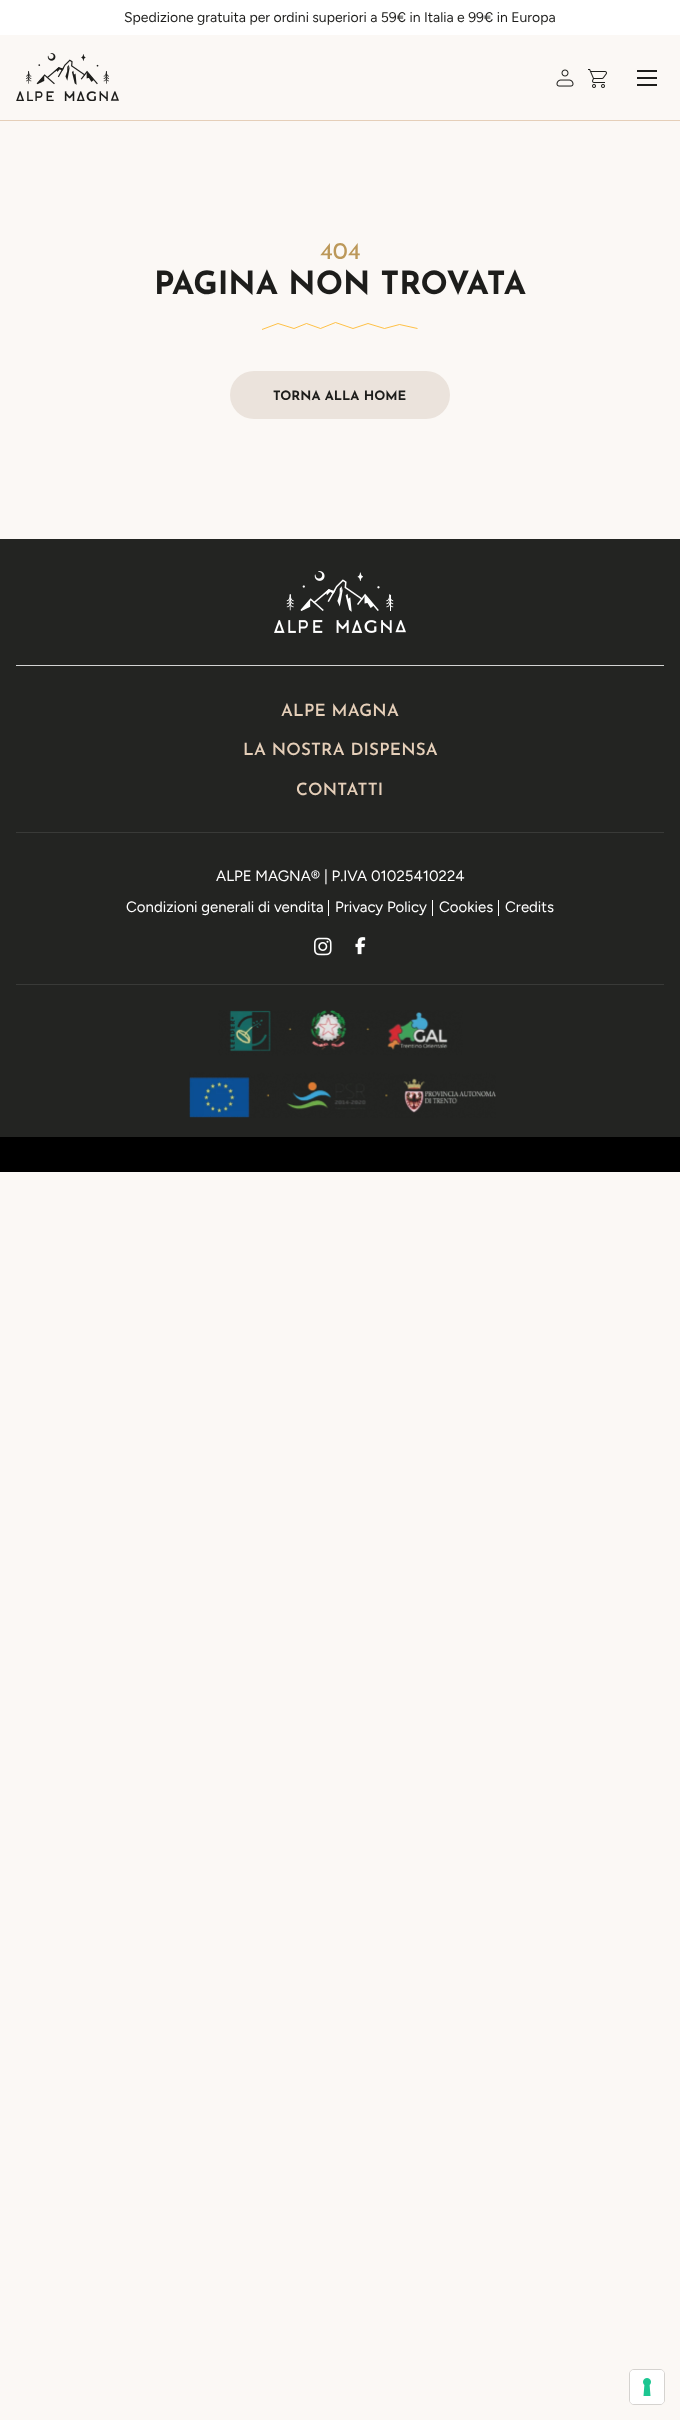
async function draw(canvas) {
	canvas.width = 680;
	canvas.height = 2420;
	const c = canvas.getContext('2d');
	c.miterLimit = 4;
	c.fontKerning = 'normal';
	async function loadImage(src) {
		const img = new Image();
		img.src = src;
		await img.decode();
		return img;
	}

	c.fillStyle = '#fbf8f5';
	c.fillRect(0, 0, 680, 2420);
	c.fillStyle = '#fff';
	c.fillRect(0, 0, 680, 35);
	c.font = '14px Figtree';
	c.fillStyle = '#1d1d1b';
	c.fillText('Spedizione gratuita per ordini superiori a 59€ in Italia e 99€ in Europa', 124, 22);
	c.fillStyle = '#e5cfb9';
	c.fillRect(0, 120, 680, 1);
	c.drawImage(await loadImage('img1.png'), 16, 53, 103, 48);
	c.drawImage(await loadImage('img2.png'), 556, 69, 18, 18);
	c.drawImage(await loadImage('img3.png'), 588, 69, 19, 19);
	for (const [x, y, w, h, color] of [
		[637, 70, 20, 2, '#1d1d1b'],
		[637, 77, 20, 2, '#1d1d1b'],
		[637, 84, 20, 2, '#1d1d1b'],
	]) {
		c.fillStyle = color;
		c.fillRect(x, y, w, h);
	}
	c.font = '24px Josefin Sans';
	c.fillStyle = '#bc9859';
	c.fillText('404', 320, 259);
	c.font = 'bold 32px Josefin Sans';
	c.fillStyle = '#1d1d1b';
	c.fillText('PAGINA NON TROVATA', 154, 294);
	c.beginPath();
	c.moveTo(262, 329.5);
	c.lineTo(278, 323.5);
	c.lineTo(294, 328.5);
	c.lineTo(306.5, 323.5);
	c.lineTo(320.5, 328.5);
	c.lineTo(335.5, 322.5);
	c.lineTo(353, 328.5);
	c.lineTo(368, 323.5);
	c.lineTo(384.5, 328.5);
	c.lineTo(399.5, 324.5);
	c.lineTo(417.5, 328.5);
	c.strokeStyle = '#ffb219';
	c.lineWidth = 0.8;
	c.stroke();
	c.fillStyle = '#ebe3dc';
	c.beginPath();
	c.roundRect(230, 371, 220, 48, 24);
	c.fill();
	c.font = 'bold 13px Josefin Sans';
	c.fillStyle = '#1d1d1b';
	c.fillText('TORNA ALLA HOME', 273, 400);
	for (const [x, y, w, h, color] of [
		[0, 539, 680, 598, '#232422'],
		[0, 1137, 680, 35, '#000'],
		[16, 665, 648, 1, '#d3d3d3'],
	]) {
		c.fillStyle = color;
		c.fillRect(x, y, w, h);
	}
	c.drawImage(await loadImage('img4.png'), 274, 571, 132, 62);
	c.letterSpacing = '0.2px';
	c.font = '600 17px Josefin Sans';
	c.fillStyle = '#e5cfb9';
	for (const [text, x, y] of [
		['ALPE MAGNA', 281, 716],
		['LA NOSTRA DISPENSA', 243, 755],
		['CONTATTI', 296, 795],
	]) {
		c.fillText(text, x, y);
	}
	c.fillStyle = '#393a38';
	c.fillRect(16, 832, 648, 1);
	c.letterSpacing = '0px';
	c.font = '15px Figtree';
	c.fillStyle = '#fff';
	c.fillText('ALPE MAGNA® | P.IVA 01025410224', 216, 881);
	c.fillText('Condizioni generali di vendita', 126, 912);
	c.fillRect(328, 900, 1, 16);
	c.fillText('Privacy Policy', 335, 912);
	c.fillRect(432, 900, 1, 16);
	c.fillText('Cookies', 439, 912);
	c.fillRect(498, 900, 1, 16);
	c.fillText('Credits', 505, 912);
	c.drawImage(await loadImage('img5.png'), 314, 937, 18, 19);
	c.drawImage(await loadImage('img6.png'), 355, 937, 11, 18);
	c.fillStyle = '#393a38';
	c.fillRect(16, 984, 648, 1);
	c.drawImage(await loadImage('img7.png'), 189, 1010, 307, 108);
	c.beginPath();
	c.roundRect(629.5, 2369.5, 35, 35, 4.5);
	c.strokeStyle = '#d5d3d0';
	c.lineWidth = 1;
	c.stroke();
	c.fillStyle = '#fff';
	c.beginPath();
	c.roundRect(630, 2370, 34, 34, 4);
	c.fill();
	c.drawImage(await loadImage('img8.png'), 643, 2378, 8, 18);
}

draw(document.querySelector('canvas'));
